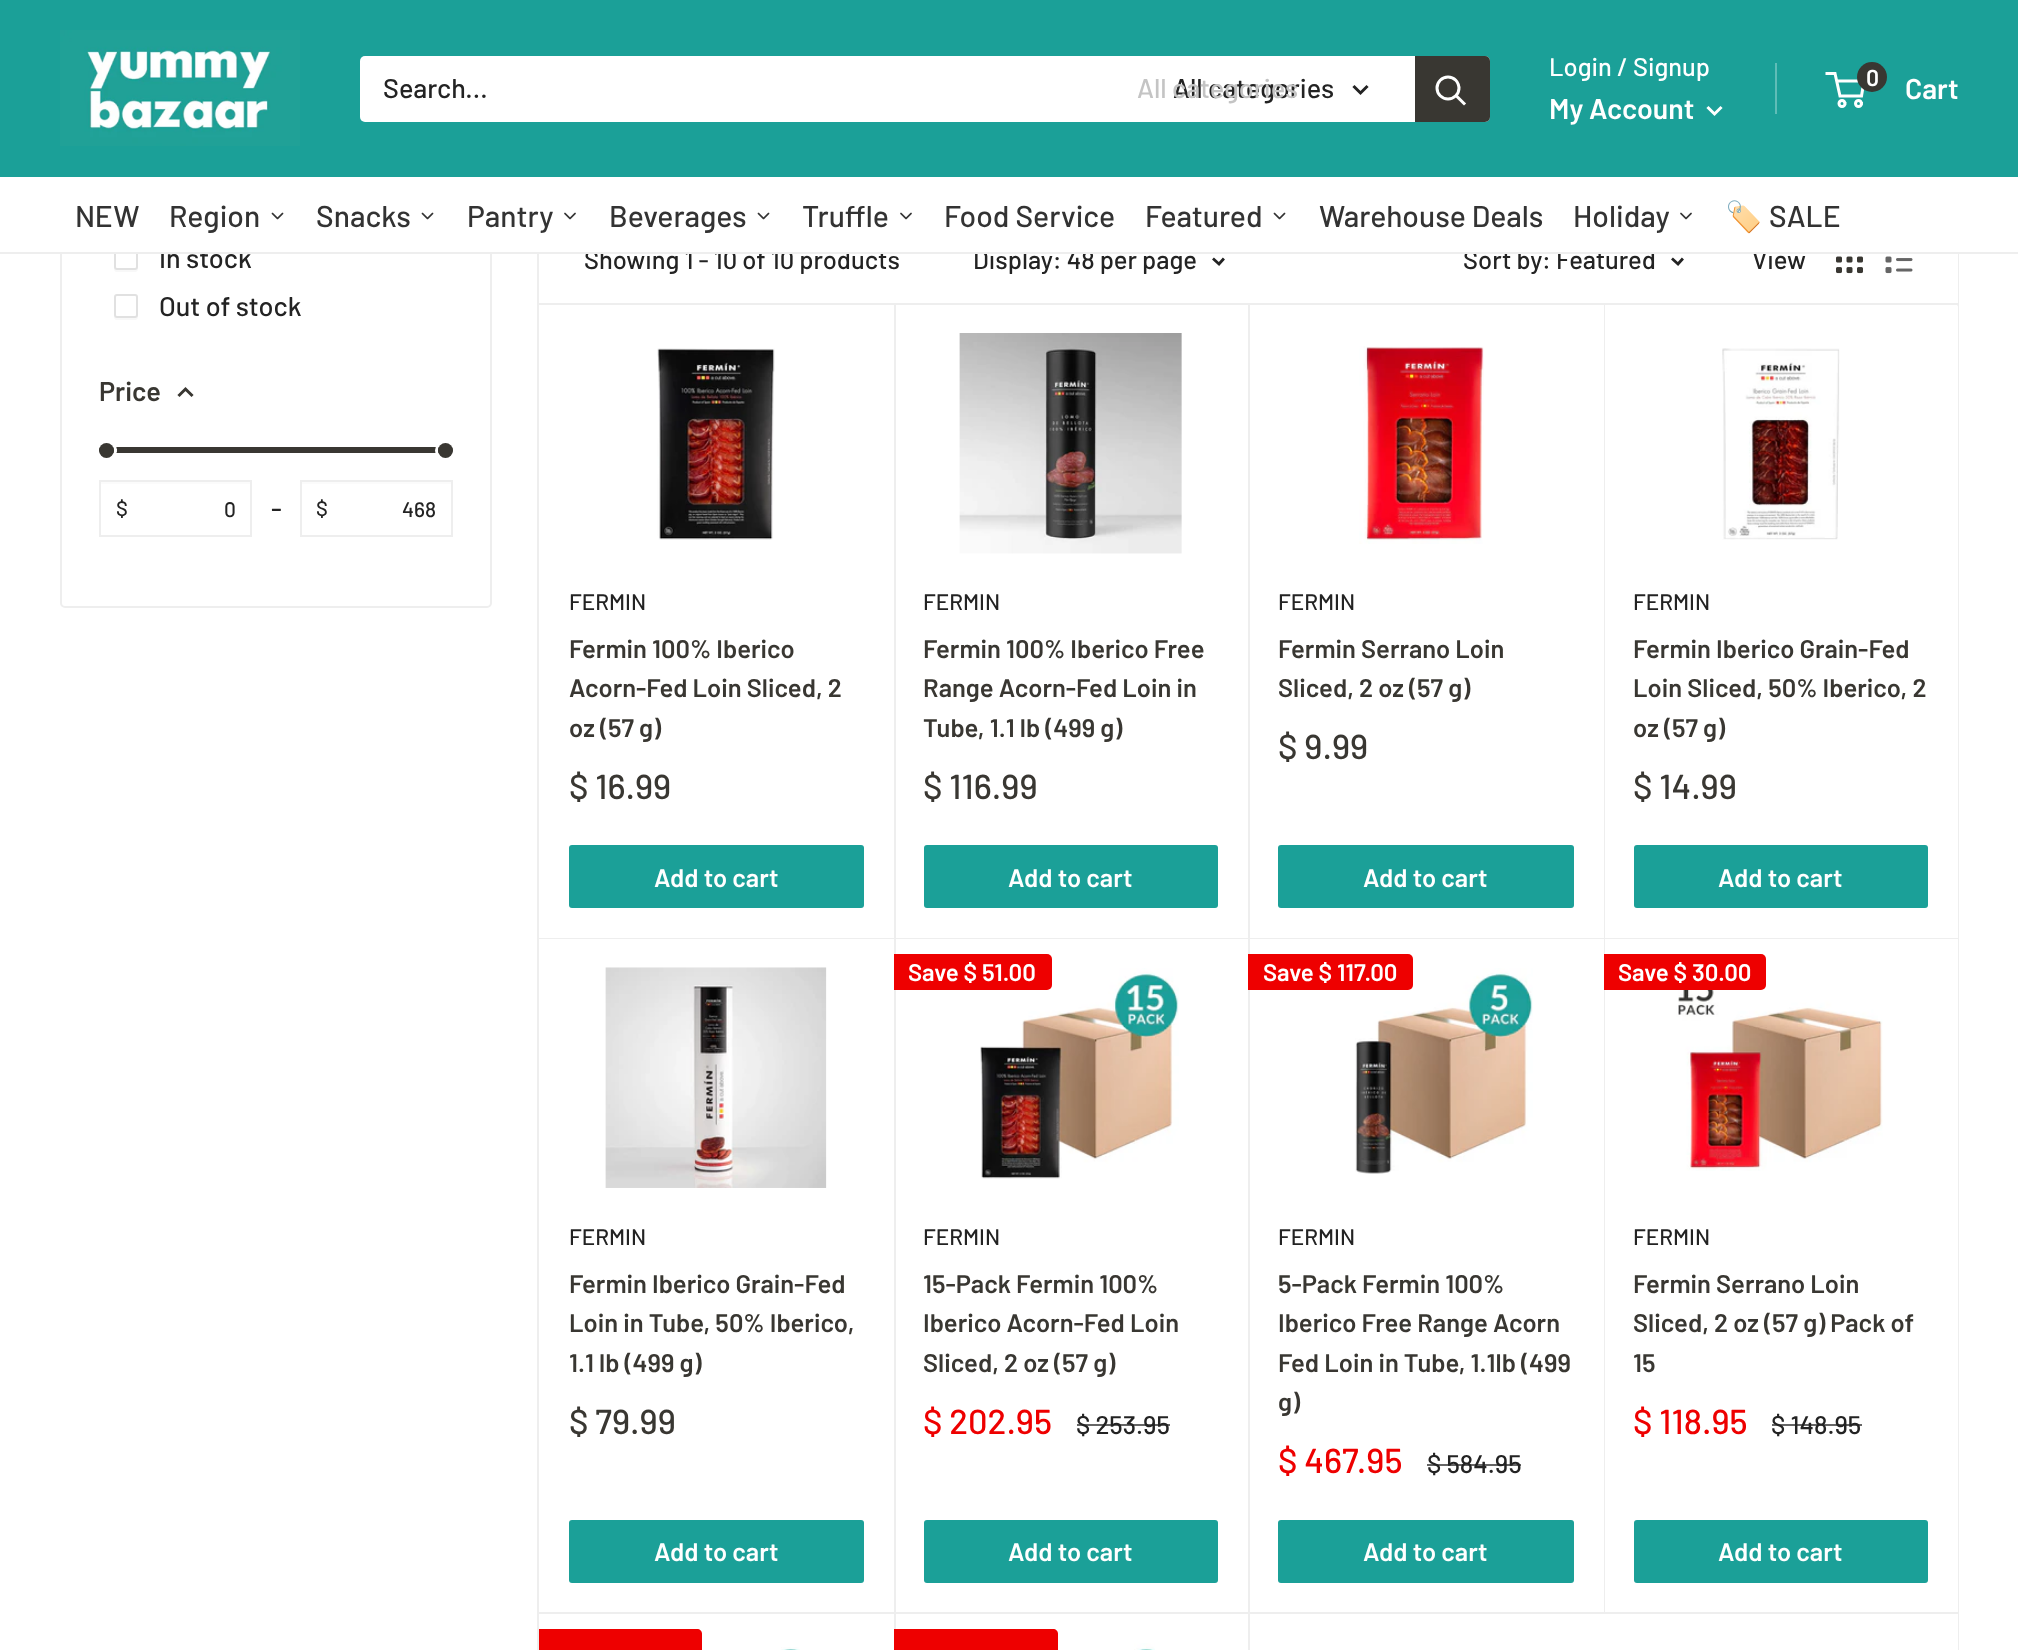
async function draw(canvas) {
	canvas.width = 2018;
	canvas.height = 1650;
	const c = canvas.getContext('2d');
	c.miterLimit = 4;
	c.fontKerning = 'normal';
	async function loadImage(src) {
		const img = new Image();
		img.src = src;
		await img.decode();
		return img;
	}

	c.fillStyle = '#fff';
	c.fillRect(0, 0, 2018, 1650);
	c.beginPath();
	c.roundRect(61, 57, 430, 550, 4);
	c.strokeStyle = '#eee';
	c.lineWidth = 2;
	c.stroke();
	c.strokeRect(538, 57, 1420, 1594);
	c.fillStyle = '#1ba098';
	c.fillRect(0, 0, 2018, 177);
	c.drawImage(await loadImage('img1.png'), 60, 30, 240, 116);
	c.fillStyle = '#fff';
	c.beginPath();
	c.roundRect(360, 56, 1130, 66, 5);
	c.fill();
	c.font = '500 27px Barlow';
	c.fillStyle = '#232323';
	c.fillText('Search...', 383, 98);
	c.fillText('All categories', 1173, 98);
	c.fillStyle = '#c4c4c4';
	c.fillText('All categories', 1137, 98);
	c.beginPath();
	c.moveTo(1366.5, 87);
	c.lineTo(1360.5, 93);
	c.lineTo(1354.5, 87);
	c.strokeStyle = '#232323';
	c.lineWidth = 3;
	c.lineCap = 'square';
	c.stroke();
	c.fillStyle = '#393732';
	c.beginPath();
	c.roundRect(1415, 56, 75, 66, [0, 5, 5, 0]);
	c.fill();
	c.beginPath();
	c.moveTo(1464, 103.5);
	c.lineTo(1456.5, 96);
	c.strokeStyle = '#fff';
	c.stroke();
	c.beginPath();
	c.arc(1448, 88, 11, 0, 2 * Math.PI);
	c.stroke();
	c.font = '500 25.5px Barlow';
	c.fillStyle = '#fff';
	c.fillText('Login / Signup', 1549, 76);
	c.fillStyle = '#5fbdb7';
	c.fillRect(1775, 63, 2, 51);
	c.font = '600 28.5px Barlow';
	c.fillStyle = '#fff';
	c.fillText('My Account', 1549, 119);
	c.beginPath();
	c.moveTo(1720.5, 108);
	c.lineTo(1714.5, 114);
	c.lineTo(1708.5, 108);
	c.stroke();
	c.beginPath();
	c.arc(1842, 103.5, 3, 0, 2 * Math.PI);
	c.stroke();
	c.beginPath();
	c.arc(1858.5, 103.5, 3, 0, 2 * Math.PI);
	c.stroke();
	c.beginPath();
	c.moveTo(1836.5, 81);
	c.lineTo(1864, 81);
	c.lineTo(1861.5, 96);
	c.lineTo(1840, 96);
	c.lineTo(1835, 73.5);
	c.lineTo(1825.5, 73.5);
	c.lineCap = 'butt';
	c.stroke();
	c.fillStyle = '#393732';
	c.beginPath();
	c.arc(1872, 77, 15, 0, 2 * Math.PI);
	c.fill();
	c.font = '600 23px Barlow';
	c.fillStyle = '#fff';
	c.fillText('0', 1866, 86);
	c.font = '600 28.5px Barlow';
	c.fillText('Cart', 1905, 99);
	c.fillStyle = '#f8f8f8';
	c.beginPath();
	c.moveTo(114, 267);
	c.bezierCurveTo(114, 272, 115, 272, 120, 272);
	c.lineTo(132, 272);
	c.bezierCurveTo(137, 272, 138, 272, 138, 267);
	c.bezierCurveTo(138, 268.5, 136.5, 270, 135, 270);
	c.lineTo(117, 270);
	c.bezierCurveTo(115.5, 270, 114, 268.5, 114, 267);
	c.closePath();
	c.fill();
	c.beginPath();
	c.roundRect(115, 247, 22, 22, 2);
	c.strokeStyle = '#e1e1e1';
	c.lineWidth = 2;
	c.stroke();
	c.font = '500 27px Barlow';
	c.fillStyle = '#232323';
	c.fillText('In stock', 159, 268);
	c.font = '500 25.5px Barlow';
	for (const [text, x, y] of [
		['Showing 1 - 10 of 10 products', 584, 269],
		['Display: 48 per page', 973, 269],
		['Sort by: Featured', 1463, 269],
		['View', 1752, 269],
	]) {
		c.fillText(text, x, y);
	}
	c.fillStyle = '#fff';
	c.fillRect(60, 177, 1899, 75);
	c.fillStyle = '#eee';
	c.fillRect(0, 252, 2018, 2);
	c.font = '500 30px Barlow';
	c.fillStyle = '#333';
	c.fillText('NEW', 75, 227);
	c.fillText('Region', 169, 227);
	c.drawImage(await loadImage('img2.png'), 271, 212, 13, 8);
	c.fillText('Snacks', 316, 227);
	c.drawImage(await loadImage('img2.png'), 421, 212, 13, 8);
	c.fillText('Pantry', 467, 227);
	c.drawImage(await loadImage('img3.png'), 564, 212, 12, 8);
	c.fillText('Beverages', 609, 227);
	c.drawImage(await loadImage('img2.png'), 757, 212, 13, 8);
	c.fillText('Truffle', 802, 227);
	c.drawImage(await loadImage('img3.png'), 900, 212, 12, 8);
	c.fillText('Food Service', 944, 227);
	c.fillText('Featured', 1145, 227);
	c.drawImage(await loadImage('img2.png'), 1273, 212, 13, 8);
	c.fillText('Warehouse Deals', 1319, 227);
	c.fillText('Holiday', 1573, 227);
	c.drawImage(await loadImage('img3.png'), 1680, 212, 12, 8);
	c.font = '30px Noto Color Emoji';
	c.fillText('🏷️', 1725, 227);
	c.font = '500 30px Barlow';
	c.fillText('SALE', 1769, 227);
	c.fillStyle = '#f8f8f8';
	c.beginPath();
	c.moveTo(114, 315);
	c.bezierCurveTo(114, 320, 115, 320, 120, 320);
	c.lineTo(132, 320);
	c.bezierCurveTo(137, 320, 138, 320, 138, 315);
	c.bezierCurveTo(138, 316.5, 136.5, 318, 135, 318);
	c.lineTo(117, 318);
	c.bezierCurveTo(115.5, 318, 114, 316.5, 114, 315);
	c.closePath();
	c.fill();
	c.beginPath();
	c.roundRect(115, 295, 22, 22, 2);
	c.stroke();
	c.font = '500 27px Barlow';
	c.fillStyle = '#232323';
	c.fillText('Out of stock', 159, 316);
	c.font = '600 27px Barlow';
	c.fillStyle = '#393732';
	c.fillText('Price', 99, 401);
	c.beginPath();
	c.moveTo(179.5, 395);
	c.lineTo(185.5, 389);
	c.lineTo(191.5, 395);
	c.strokeStyle = '#393732';
	c.lineWidth = 3;
	c.lineCap = 'square';
	c.stroke();
	c.beginPath();
	c.roundRect(99, 447, 354, 6, 3);
	c.fill();
	c.beginPath();
	c.arc(106.5, 450.5, 9, 0, 2 * Math.PI);
	c.strokeStyle = '#fff';
	c.stroke();
	c.beginPath();
	c.arc(106.5, 450.5, 7.5, 0, 2 * Math.PI);
	c.fill();
	c.beginPath();
	c.arc(445.5, 450.5, 9, 0, 2 * Math.PI);
	c.stroke();
	c.beginPath();
	c.arc(445.5, 450.5, 7.5, 0, 2 * Math.PI);
	c.fill();
	c.fillStyle = '#fbfbfb';
	c.fillRect(101, 482, 150, 2);
	c.strokeStyle = '#eee';
	c.lineWidth = 2;
	c.strokeRect(100, 481, 151, 55);
	c.font = '500 21px Barlow';
	c.fillStyle = '#232323';
	c.fillText('$', 116, 516);
	c.fillText('0', 224, 517);
	c.font = '500 27px Barlow';
	c.fillText('-', 271, 518);
	c.fillStyle = '#fbfbfb';
	c.fillRect(302, 482, 150, 2);
	c.strokeRect(301, 481, 151, 55);
	c.font = '500 21px Barlow';
	c.fillStyle = '#232323';
	c.fillText('$', 316, 516);
	c.fillText('468', 402, 517);
	c.fillStyle = '#fff';
	c.beginPath();
	c.roundRect(539, 303, 1419, 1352, 5);
	c.fill();
	c.fillStyle = '#eee';
	c.beginPath();
	c.moveTo(540, 938);
	c.lineTo(896, 938);
	c.lineTo(896, 303);
	c.lineTo(894, 303);
	c.lineTo(894, 938);
	c.closePath();
	c.fill();
	c.beginPath();
	c.moveTo(896, 938);
	c.lineTo(1250, 938);
	c.lineTo(1250, 303);
	c.lineTo(1248, 303);
	c.lineTo(1248, 938);
	c.closePath();
	c.fill();
	c.fillStyle = '#fff';
	c.beginPath();
	c.roundRect(1604, 303, 354, 635, [0, 5, 0, 0]);
	c.fill();
	c.fillStyle = '#eee';
	c.beginPath();
	c.moveTo(1250, 938);
	c.lineTo(1605, 938);
	c.lineTo(1605, 303);
	c.lineTo(1604, 303);
	c.lineTo(1604, 938);
	c.closePath();
	c.fill();
	c.beginPath();
	c.moveTo(539, 303);
	c.lineTo(539, 305);
	c.lineTo(1958, 305);
	c.lineTo(1958, 218);
	c.lineTo(1958, 303);
	c.closePath();
	c.fill();
	c.fillStyle = '#fff';
	c.fillRect(1957, 254, 1, 49);
	c.beginPath();
	c.moveTo(1223, 259.5);
	c.lineTo(1219, 264);
	c.lineTo(1214, 259.5);
	c.strokeStyle = '#232323';
	c.lineWidth = 2.8;
	c.stroke();
	c.beginPath();
	c.moveTo(1682, 259.5);
	c.lineTo(1678, 264);
	c.lineTo(1673, 259.5);
	c.stroke();
	c.drawImage(await loadImage('img4.png'), 1836, 256, 27, 18);
	c.drawImage(await loadImage('img5.png'), 1885, 256, 28, 18);
	c.fillStyle = '#eee';
	c.fillRect(539, 938, 709, 1);
	c.drawImage(await loadImage('img6.png'), 657, 348, 118, 192);
	c.font = '500 22.5px Barlow';
	c.fillStyle = '#232323';
	c.fillText('FERMIN', 569, 610);
	c.font = '600 25.5px Barlow';
	c.fillStyle = '#393732';
	for (const [text, x, y] of [
		['Fermin 100% Iberico', 569, 658],
		['Acorn-Fed Loin Sliced, 2', 569, 697],
		['oz (57 g)', 569, 737],
	]) {
		c.fillText(text, x, y);
	}
	c.font = '500 34.5px Barlow';
	c.fillText('$ 16.99', 569, 799);
	c.fillStyle = '#1ba098';
	c.beginPath();
	c.roundRect(569, 845, 295, 63, 3);
	c.fill();
	c.font = '600 25.5px Barlow';
	c.fillStyle = '#fff';
	c.fillText('Add to cart', 654, 887);
	c.drawImage(await loadImage('img7.png'), 959, 333, 223, 221);
	c.font = '500 22.5px Barlow';
	c.fillStyle = '#232323';
	c.fillText('FERMIN', 923, 610);
	c.font = '600 25.5px Barlow';
	c.fillStyle = '#393732';
	for (const [text, x, y] of [
		['Fermin 100% Iberico Free', 923, 658],
		['Range Acorn-Fed Loin in', 923, 697],
		['Tube, 1.1 lb (499 g)', 923, 737],
	]) {
		c.fillText(text, x, y);
	}
	c.font = '500 34.5px Barlow';
	c.fillText('$ 116.99', 923, 799);
	c.fillStyle = '#1ba098';
	c.beginPath();
	c.roundRect(924, 845, 294, 63, 3);
	c.fill();
	c.font = '600 25.5px Barlow';
	c.fillStyle = '#fff';
	c.fillText('Add to cart', 1008, 887);
	c.fillStyle = '#eee';
	c.beginPath();
	c.moveTo(1248, 938);
	c.lineTo(1248, 939);
	c.lineTo(1604, 939);
	c.lineTo(1604, 305);
	c.lineTo(1604, 938);
	c.closePath();
	c.fill();
	c.drawImage(await loadImage('img8.png'), 1359, 346, 125, 198);
	c.font = '500 22.5px Barlow';
	c.fillStyle = '#232323';
	c.fillText('FERMIN', 1278, 610);
	c.font = '600 25.5px Barlow';
	c.fillStyle = '#393732';
	c.fillText('Fermin Serrano Loin', 1278, 658);
	c.fillText('Sliced, 2 oz (57 g)', 1278, 697);
	c.font = '500 34.5px Barlow';
	c.fillText('$ 9.99', 1278, 759);
	c.fillStyle = '#1ba098';
	c.beginPath();
	c.roundRect(1278, 845, 296, 63, 3);
	c.fill();
	c.font = '600 25.5px Barlow';
	c.fillStyle = '#fff';
	c.fillText('Add to cart', 1363, 887);
	c.drawImage(await loadImage('img9.png'), 1722, 348, 118, 192);
	c.font = '500 22.5px Barlow';
	c.fillStyle = '#232323';
	c.fillText('FERMIN', 1633, 610);
	c.font = '600 25.5px Barlow';
	c.fillStyle = '#393732';
	for (const [text, x, y] of [
		['Fermin Iberico Grain-Fed', 1633, 658],
		['Loin Sliced, 50% Iberico, 2', 1633, 697],
		['oz (57 g)', 1633, 737],
	]) {
		c.fillText(text, x, y);
	}
	c.font = '500 34.5px Barlow';
	c.fillText('$ 14.99', 1633, 799);
	c.fillStyle = '#1ba098';
	c.beginPath();
	c.roundRect(1634, 845, 294, 63, 3);
	c.fill();
	c.font = '600 25.5px Barlow';
	c.fillStyle = '#fff';
	c.fillText('Add to cart', 1718, 887);
	c.fillStyle = '#eee';
	c.beginPath();
	c.moveTo(1604, 938);
	c.lineTo(1604, 939);
	c.lineTo(1958, 939);
	c.lineTo(1958, 308);
	c.lineTo(1958, 306);
	c.lineTo(1958, 938);
	c.closePath();
	c.fill();
	c.fillRect(539, 1612, 355, 2);
	c.drawImage(await loadImage('img10.png'), 605, 967, 222, 221);
	c.font = '500 22.5px Barlow';
	c.fillStyle = '#232323';
	c.fillText('FERMIN', 569, 1245);
	c.font = '600 25.5px Barlow';
	c.fillStyle = '#393732';
	for (const [text, x, y] of [
		['Fermin Iberico Grain-Fed', 569, 1293],
		['Loin in Tube, 50% Iberico,', 569, 1332],
		['1.1 lb (499 g)', 569, 1372],
	]) {
		c.fillText(text, x, y);
	}
	c.font = '500 34.5px Barlow';
	c.fillText('$ 79.99', 569, 1434);
	c.fillStyle = '#1ba098';
	c.beginPath();
	c.roundRect(569, 1520, 295, 63, 3);
	c.fill();
	c.font = '600 25.5px Barlow';
	c.fillStyle = '#fff';
	c.fillText('Add to cart', 654, 1561);
	c.fillStyle = '#eee';
	c.beginPath();
	c.moveTo(540, 1612);
	c.lineTo(540, 1613);
	c.lineTo(896, 1613);
	c.lineTo(896, 938);
	c.lineTo(894, 938);
	c.lineTo(894, 1612);
	c.closePath();
	c.fill();
	c.fillRect(894, 1612, 354, 2);
	c.drawImage(await loadImage('img11.png'), 980, 968, 199, 211);
	c.fillStyle = '#e00';
	c.beginPath();
	c.roundRect(894, 954, 158, 36, [0, 5, 5, 0]);
	c.fill();
	c.font = '600 24px Barlow';
	c.fillStyle = '#fff';
	c.fillText('Save $ 51.00', 908, 981);
	c.font = '500 22.5px Barlow';
	c.fillStyle = '#232323';
	c.fillText('FERMIN', 923, 1245);
	c.font = '600 25.5px Barlow';
	c.fillStyle = '#393732';
	for (const [text, x, y] of [
		['15-Pack Fermin 100%', 923, 1293],
		['Iberico Acorn-Fed Loin', 923, 1332],
		['Sliced, 2 oz (57 g)', 923, 1372],
	]) {
		c.fillText(text, x, y);
	}
	c.font = '500 34.5px Barlow';
	c.fillStyle = '#e00';
	c.fillText('$ 202.95', 923, 1434);
	c.font = '500 25.5px Barlow';
	c.fillStyle = '#232323';
	c.fillText('$ 253.95', 1076, 1434);
	c.fillStyle = '#232323b3';
	c.fillRect(1077, 1424, 93, 2);
	c.fillStyle = '#1ba098';
	c.beginPath();
	c.roundRect(924, 1520, 294, 63, 3);
	c.fill();
	c.font = '600 25.5px Barlow';
	c.fillStyle = '#fff';
	c.fillText('Add to cart', 1008, 1561);
	c.fillStyle = '#eee';
	c.beginPath();
	c.moveTo(896, 1612);
	c.lineTo(896, 1613);
	c.lineTo(1250, 1613);
	c.lineTo(1250, 938);
	c.lineTo(1248, 938);
	c.lineTo(1248, 1612);
	c.closePath();
	c.fill();
	c.beginPath();
	c.moveTo(1248, 1612);
	c.lineTo(1248, 1614);
	c.lineTo(1604, 1614);
	c.lineTo(1604, 939);
	c.lineTo(1604, 1612);
	c.closePath();
	c.fill();
	c.drawImage(await loadImage('img12.png'), 1355, 968, 178, 206);
	c.fillStyle = '#e00';
	c.beginPath();
	c.roundRect(1248, 954, 165, 36, [0, 5, 5, 0]);
	c.fill();
	c.font = '600 24px Barlow';
	c.fillStyle = '#fff';
	c.fillText('Save $ 117.00', 1263, 981);
	c.font = '500 22.5px Barlow';
	c.fillStyle = '#232323';
	c.fillText('FERMIN', 1278, 1245);
	c.font = '600 25.5px Barlow';
	c.fillStyle = '#393732';
	for (const [text, x, y] of [
		['5-Pack Fermin 100%', 1278, 1293],
		['Iberico Free Range Acorn', 1278, 1332],
		['Fed Loin in Tube, 1.1lb (499', 1278, 1372],
		['g)', 1278, 1411],
	]) {
		c.fillText(text, x, y);
	}
	c.font = '500 34.5px Barlow';
	c.fillStyle = '#e00';
	c.fillText('$ 467.95', 1278, 1473);
	c.font = '500 25.5px Barlow';
	c.fillStyle = '#232323';
	c.fillText('$ 584.95', 1427, 1473);
	c.fillStyle = '#232323b3';
	c.fillRect(1427, 1464, 94, 2);
	c.fillStyle = '#1ba098';
	c.beginPath();
	c.roundRect(1278, 1520, 296, 63, 3);
	c.fill();
	c.font = '600 25.5px Barlow';
	c.fillStyle = '#fff';
	c.fillText('Add to cart', 1363, 1561);
	c.fillStyle = '#eee';
	c.beginPath();
	c.moveTo(1250, 1612);
	c.lineTo(1250, 1613);
	c.lineTo(1605, 1613);
	c.lineTo(1605, 938);
	c.lineTo(1604, 938);
	c.lineTo(1604, 1612);
	c.closePath();
	c.fill();
	c.drawImage(await loadImage('img13.png'), 1676, 973, 207, 198);
	c.fillStyle = '#e00';
	c.beginPath();
	c.roundRect(1604, 954, 162, 36, [0, 5, 5, 0]);
	c.fill();
	c.font = '600 24px Barlow';
	c.fillStyle = '#fff';
	c.fillText('Save $ 30.00', 1618, 981);
	c.font = '500 22.5px Barlow';
	c.fillStyle = '#232323';
	c.fillText('FERMIN', 1633, 1245);
	c.font = '600 25.5px Barlow';
	c.fillStyle = '#393732';
	for (const [text, x, y] of [
		['Fermin Serrano Loin', 1633, 1293],
		['Sliced, 2 oz (57 g) Pack of', 1633, 1332],
		['15', 1633, 1372],
	]) {
		c.fillText(text, x, y);
	}
	c.font = '500 34.5px Barlow';
	c.fillStyle = '#e00';
	c.fillText('$ 118.95', 1633, 1434);
	c.font = '500 25.5px Barlow';
	c.fillStyle = '#232323';
	c.fillText('$ 148.95', 1771, 1434);
	c.fillStyle = '#232323b3';
	c.fillRect(1772, 1424, 90, 2);
	c.fillStyle = '#1ba098';
	c.beginPath();
	c.roundRect(1634, 1520, 294, 63, 3);
	c.fill();
	c.font = '600 25.5px Barlow';
	c.fillStyle = '#fff';
	c.fillText('Add to cart', 1718, 1561);
	c.fillStyle = '#eee';
	c.beginPath();
	c.moveTo(1604, 1612);
	c.lineTo(1604, 1614);
	c.lineTo(1958, 1614);
	c.lineTo(1958, 939);
	c.lineTo(1958, 1612);
	c.closePath();
	c.fill();
	c.fillRect(894, 1613, 2, 16);
	c.fillStyle = '#e00';
	c.beginPath();
	c.moveTo(539, 1629);
	c.lineTo(697, 1629);
	c.bezierCurveTo(700, 1629, 702, 1631, 702, 1634);
	c.lineTo(702, 1650);
	c.bezierCurveTo(702, 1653, 700, 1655, 697, 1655);
	c.lineTo(539, 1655);
	c.closePath();
	c.fill();
	c.drawImage(await loadImage('img14.png'), 781, 1647, 19, 3);
	c.beginPath();
	c.moveTo(894, 1629);
	c.lineTo(1053, 1629);
	c.bezierCurveTo(1056, 1629, 1058, 1631, 1058, 1634);
	c.lineTo(1058, 1650);
	c.bezierCurveTo(1058, 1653, 1056, 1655, 1053, 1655);
	c.lineTo(894, 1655);
	c.closePath();
	c.fill();
	c.drawImage(await loadImage('img15.png'), 1134, 1643, 21, 7);
	c.fillStyle = '#eee';
	c.fillRect(1248, 1613, 2, 37);
}

draw(document.querySelector('canvas'));
